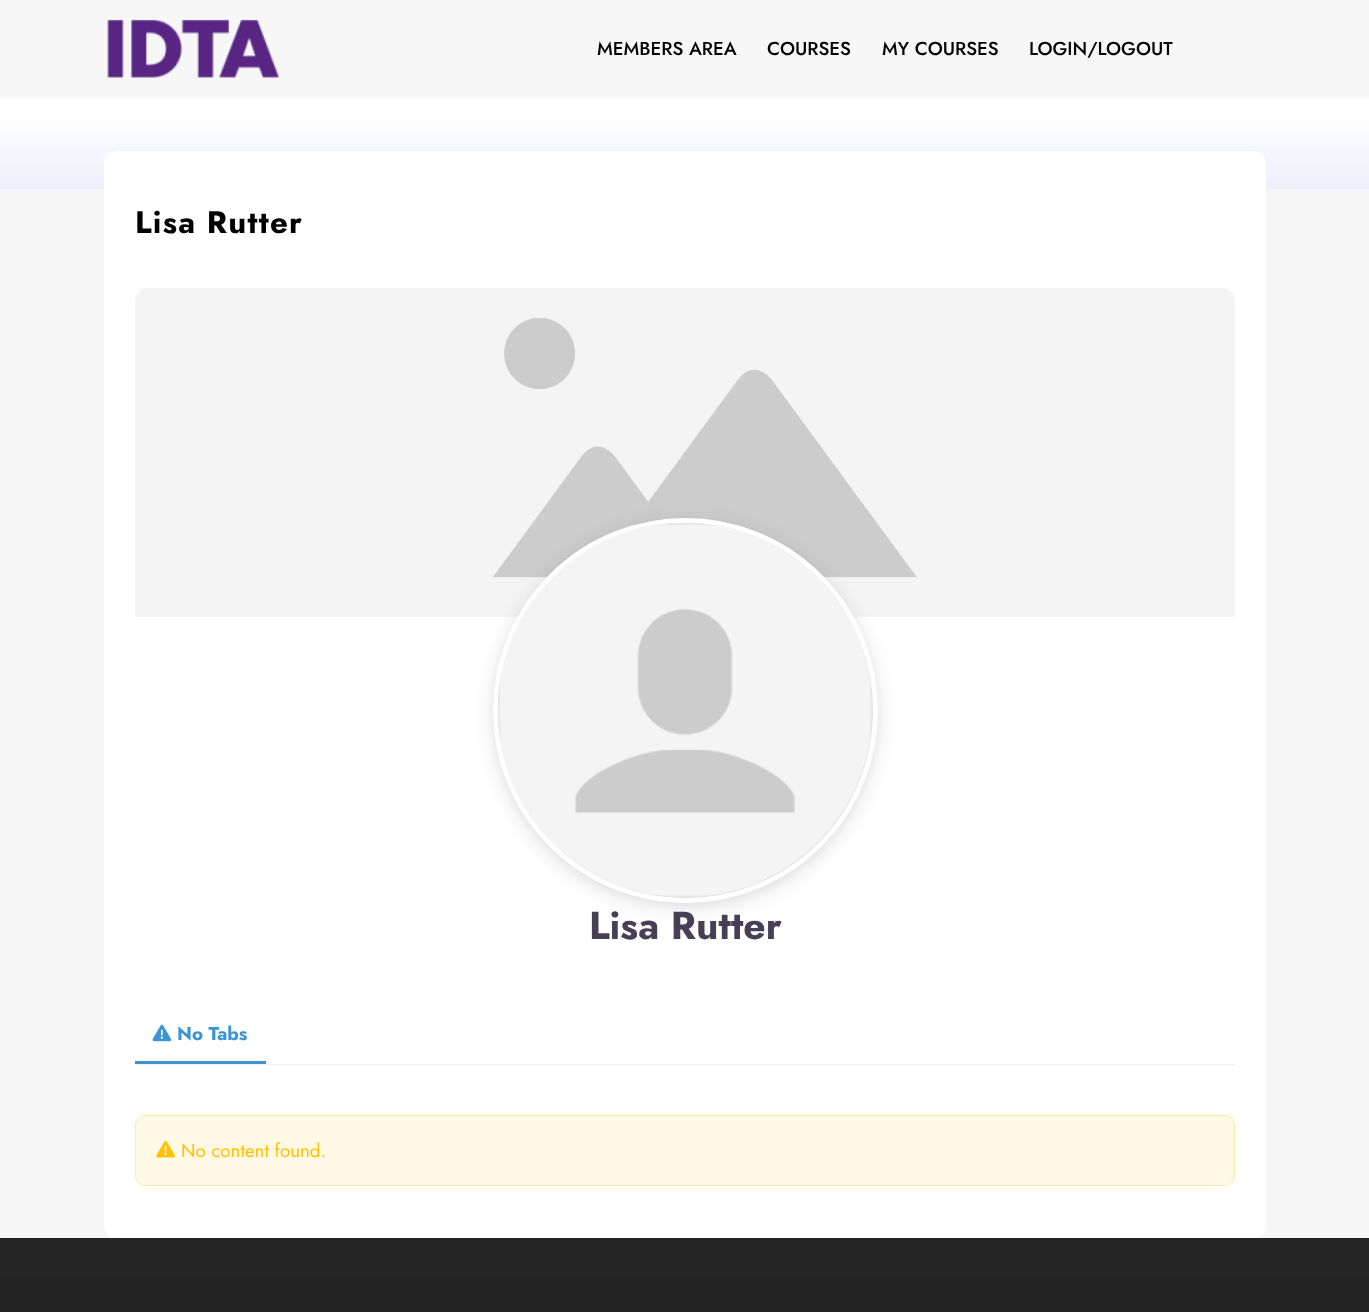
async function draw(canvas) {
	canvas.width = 1369;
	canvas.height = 1312;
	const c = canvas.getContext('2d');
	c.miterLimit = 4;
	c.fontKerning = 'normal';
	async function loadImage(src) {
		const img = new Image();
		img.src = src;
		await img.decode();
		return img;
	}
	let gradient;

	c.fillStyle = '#f7f7f7';
	c.fillRect(0, 0, 1369, 1312);
	c.drawImage(await loadImage('img1.png'), 107, 19, 173, 59);
	c.font = '500 18.75px Jost';
	c.fillStyle = '#000';
	for (const [text, x, y] of [
		['MEMBERS AREA', 597, 55],
		['COURSES', 767, 55],
		['MY COURSES', 882, 55],
		['LOGIN/LOGOUT', 1029, 55],
	]) {
		c.fillText(text, x, y);
	}
	gradient = c.createLinearGradient(685, 189, 685, 98);
	gradient.addColorStop(0, '#eceffc');
	gradient.addColorStop(0.8, '#fff');
	c.fillStyle = gradient;
	c.fillRect(0, 98, 1369, 91);
	c.fillStyle = '#fff';
	c.beginPath();
	c.roundRect(104, 151, 1162, 1087, 13);
	c.fill();
	c.letterSpacing = '1.25px';
	c.font = 'bold 31.25px Jost';
	c.fillStyle = '#000';
	c.fillText('Lisa Rutter', 135, 233);
	c.drawImage(await loadImage('img2.png'), 135, 288, 1100, 329);
	c.fillStyle = '#1f1b2d1f';
	c.filter = 'blur(10px)';
	c.beginPath();
	c.roundRect(493, 523, 385, 385, 192.5);
	c.fill();
	c.filter = 'none';
	c.filter = 'blur(5px)';
	c.beginPath();
	c.roundRect(498, 525, 375, 375, 187.5);
	c.fill();
	c.filter = 'none';
	c.beginPath();
	c.arc(685.5, 710.5, 190, 0, 2 * Math.PI);
	c.strokeStyle = '#fff';
	c.lineWidth = 5;
	c.stroke();
	c.drawImage(await loadImage('img3.png'), 497, 522, 376, 376);
	c.letterSpacing = '0px';
	c.font = 'bold 39px Jost';
	c.fillStyle = '#454056';
	c.fillText('Lisa Rutter', 589, 939);
	c.fillStyle = '#efecf3';
	c.fillRect(135, 1064, 1100, 1);
	c.fillStyle = '#3993d5';
	c.fillRect(135, 1061, 131, 3);
	c.drawImage(await loadImage('img4.png'), 152, 1024, 20, 18);
	c.font = 'bold 18.75px Jost';
	c.fillText('No Tabs', 177, 1040);
	c.fillStyle = '#fff9e6';
	c.beginPath();
	c.roundRect(135.5, 1115.5, 1099, 70, 9.5);
	c.fill();
	c.strokeStyle = '#ffe9a8';
	c.lineWidth = 1;
	c.stroke();
	c.drawImage(await loadImage('img5.png'), 156, 1141, 19, 17);
	c.font = '18.75px Jost';
	c.fillStyle = '#ffc107';
	c.fillText('No content found.', 181, 1157);
	c.fillStyle = '#252525';
	c.fillRect(0, 1238, 1369, 40);
	c.fillStyle = '#222';
	c.fillRect(0, 1278, 1369, 34);
}

draw(document.querySelector('canvas'));
